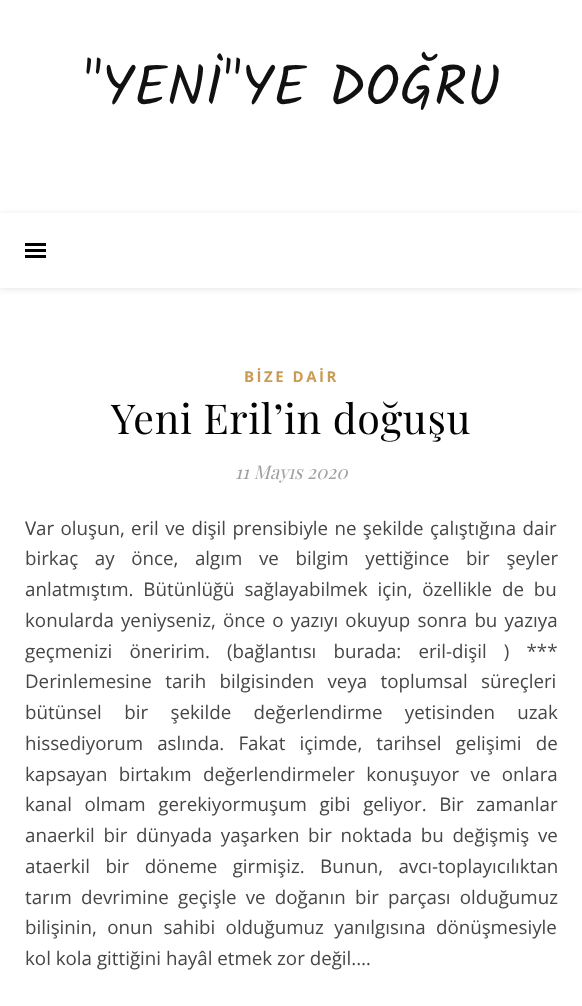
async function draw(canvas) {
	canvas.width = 582;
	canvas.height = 1006;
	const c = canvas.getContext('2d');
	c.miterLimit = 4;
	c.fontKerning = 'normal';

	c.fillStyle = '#fff';
	c.fillRect(0, 0, 582, 1006);
	c.font = '56.25px Kalam';
	c.fillStyle = '#111';
	c.fillText('"YENİ"YE DOĞRU', 83, 105);
	c.fillStyle = '#0000001a';
	c.filter = 'blur(3px)';
	c.beginPath();
	c.rect(0, 214, 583, 75);
	c.fill();
	c.filter = 'none';
	for (const [x, y, w, h, color] of [
		[0, 213, 582, 75, '#fff'],
		[25, 243, 21, 3, '#000'],
		[25, 249, 21, 3, '#000'],
		[25, 255, 21, 3, '#000'],
	]) {
		c.fillStyle = color;
		c.fillRect(x, y, w, h);
	}
	c.letterSpacing = '2.5px';
	c.font = 'bold 15px Open Sans';
	c.fillStyle = '#ca9b52';
	c.fillText('BİZE DAİR', 244, 382);
	c.letterSpacing = '0.6px';
	c.font = '41.25px Playfair Display';
	c.fillStyle = '#030303';
	c.fillText('Yeni Eril’in doğuşu', 111, 434);
	c.letterSpacing = '0px';
	c.font = 'italic 18.75px Playfair Display';
	c.fillStyle = '#a1a1a1';
	c.fillText('11 Mayıs 2020', 235, 479);
	c.font = '18.75px Noto Sans';
	c.fillStyle = '#464646';
	c.fillText('V', 25, 535);
	c.wordSpacing = '1.5px';
	c.font = '18.75px Open Sans';
	c.fillText('ar oluşun, eril ve dişil prensibiyle ne şekilde çalıştığına dair', 36, 535);
	c.wordSpacing = '11.75px';
	c.fillText('birkaç ay önce, algım ve bilgim yettiğince bir şeyler', 25, 565);
	c.wordSpacing = '5px';
	c.fillText('anlatmıştım. Bütünlüğü sağlayabilmek için, özellikle de bu', 25, 596);
	c.wordSpacing = '2.25px';
	c.fillText('konularda yeniyseniz, önce o yazıyı okuyup sonra bu yazıya', 25, 627);
	c.wordSpacing = '12.25px';
	c.fillText('geçmenizi öneririm. (bağlantısı burada: eril-dişil ) ***', 25, 658);
	c.wordSpacing = '8.5px';
	c.fillText('Derinlemesine tarih bilgisinden veya toplumsal süreçleri', 25, 688);
	c.wordSpacing = '17.5px';
	c.fillText('bütünsel bir şekilde değerlendirme yetisinden uzak', 25, 719);
	c.wordSpacing = '9.25px';
	c.fillText('hissediyorum aslında. Fakat içimde, tarihsel gelişimi de', 25, 750);
	c.wordSpacing = '6.5px';
	c.fillText('kapsayan birtakım değerlendirmeler konuşuyor ve onlara', 25, 781);
	c.wordSpacing = '7.75px';
	c.fillText('kanal olmam gerekiyormuşum gibi geliyor. Bir zamanlar', 25, 811);
	c.wordSpacing = '3.75px';
	c.fillText('anaerkil bir dünyada yaşarken bir noktada bu değişmiş ve', 25, 842);
	c.wordSpacing = '10.5px';
	c.fillText('ataerkil bir döneme girmişiz. Bunun, avcı-toplayıcılıktan', 25, 873);
	c.wordSpacing = '4.25px';
	c.fillText('tarım devrimine geçişle ve doğanın bir parçası olduğumuz', 25, 904);
	c.wordSpacing = '5.5px';
	c.fillText('bilişinin, onun sahibi olduğumuz yanılgısına dönüşmesiyle', 25, 934);
	c.wordSpacing = '0px';
	c.fillText('kol kola gittiğini hayâl etmek zor değil.…', 25, 965);
}

draw(document.querySelector('canvas'));
